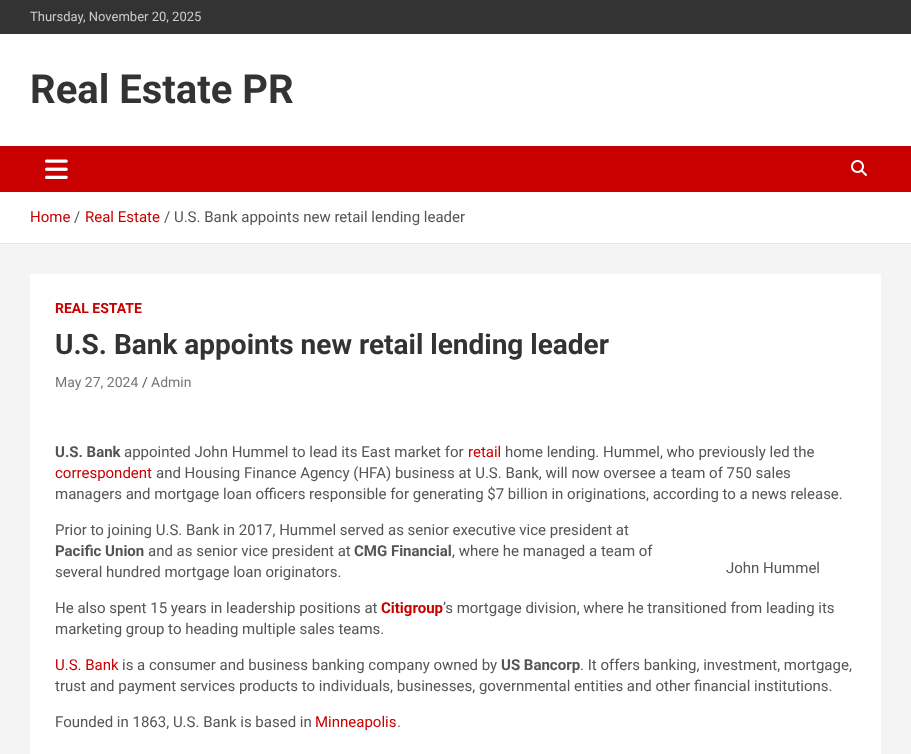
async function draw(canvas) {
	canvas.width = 911;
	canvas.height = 754;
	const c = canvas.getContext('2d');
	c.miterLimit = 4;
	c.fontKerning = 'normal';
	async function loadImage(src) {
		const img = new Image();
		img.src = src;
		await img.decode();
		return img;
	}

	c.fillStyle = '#f4f4f4';
	c.fillRect(0, 0, 911, 754);
	c.fillStyle = '#333';
	c.fillRect(0, 0, 911, 34);
	c.font = '13px Roboto';
	c.fillStyle = '#ccc';
	c.fillText('Thursday, November 20, 2025', 30, 21);
	c.fillStyle = '#fff';
	c.fillRect(0, 34, 911, 112);
	c.font = 'bold 40px Roboto';
	c.fillStyle = '#333';
	c.fillText('Real Estate PR', 30, 103);
	c.fillStyle = '#c80000';
	c.fillRect(0, 146, 911, 46);
	c.drawImage(await loadImage('img1.png'), 45, 159, 23, 20);
	c.drawImage(await loadImage('img2.png'), 851, 160, 16, 16);
	c.fillStyle = '#fff';
	c.fillRect(0, 192, 911, 51);
	c.fillStyle = '#e6e6e6';
	c.fillRect(0, 243, 911, 1);
	c.font = '15px Roboto';
	c.fillStyle = '#c80000';
	c.fillText('Home', 30, 222);
	c.fillStyle = '#555';
	c.fillText('/', 74, 222);
	c.fillStyle = '#c80000';
	c.fillText('Real Estate', 85, 222);
	c.fillStyle = '#555';
	c.fillText('/ U.S. Bank appoints new retail lending leader', 164, 222);
	c.fillStyle = '#fff';
	c.fillRect(30, 274, 851, 480);
	c.font = 'bold 14px Roboto';
	c.fillStyle = '#c80000';
	c.fillText('REAL ESTATE', 55, 313);
	c.font = 'bold 28px Roboto';
	c.fillStyle = '#333';
	c.fillText('U.S. Bank appoints new retail lending leader', 55, 354);
	c.font = '14px Roboto';
	c.fillStyle = '#777';
	c.fillText('May 27, 2024', 55, 387);
	c.fillStyle = '#555';
	c.fillText('/', 142, 387);
	c.fillStyle = '#777';
	c.fillText('Admin', 151, 387);
	c.font = 'bold 15px Roboto';
	c.fillStyle = '#555';
	c.fillText('U.S. Bank', 55, 457);
	c.font = '15px Roboto';
	c.fillText('appointed John Hummel to lead its East market for', 124, 457);
	c.fillStyle = '#c80000';
	c.fillText('retail', 468, 457);
	c.fillStyle = '#555';
	c.fillText('home lending. Hummel, who previously led the', 505, 457);
	c.fillStyle = '#c80000';
	c.fillText('correspondent', 55, 478);
	c.fillStyle = '#555';
	for (const [text, x, y] of [
		['and Housing Finance Agency (HFA) business at U.S. Bank, will now oversee a team of 750 sales', 156, 478],
		['managers and mortgage loan officers responsible for generating $7 billion in originations, according to a news release.', 55, 499],
		['Prior to joining U.S. Bank in 2017, Hummel served as senior executive vice president at', 55, 535],
	]) {
		c.fillText(text, x, y);
	}
	c.font = 'bold 15px Roboto';
	c.fillText('Pacific Union', 55, 556);
	c.font = '15px Roboto';
	c.fillText('and as senior vice president at', 148, 556);
	c.font = 'bold 15px Roboto';
	c.fillText('CMG Financial', 354, 556);
	c.font = '15px Roboto';
	for (const [text, x, y] of [
		[', where he managed a team of', 452, 556],
		['several hundred mortgage loan originators.', 55, 577],
		['John Hummel', 726, 573],
		['He also spent 15 years in leadership positions at', 55, 613],
	]) {
		c.fillText(text, x, y);
	}
	c.font = 'bold 15px Roboto';
	c.fillStyle = '#c80000';
	c.fillText('Citigroup', 381, 613);
	c.font = '15px Roboto';
	c.fillStyle = '#555';
	c.fillText('’s mortgage division, where he transitioned from leading its', 443, 613);
	c.fillText('marketing group to heading multiple sales teams.', 55, 634);
	c.fillStyle = '#c80000';
	c.fillText('U.S. Bank', 55, 670);
	c.fillStyle = '#555';
	c.fillText('is a consumer and business banking company owned by', 122, 670);
	c.font = 'bold 15px Roboto';
	c.fillText('US Bancorp', 501, 670);
	c.font = '15px Roboto';
	for (const [text, x, y] of [
		['. It offers banking, investment, mortgage,', 580, 670],
		['trust and payment services products to individuals, businesses, governmental entities and other financial institutions.', 55, 691],
		['Founded in 1863, U.S. Bank is based in', 55, 727],
	]) {
		c.fillText(text, x, y);
	}
	c.fillStyle = '#c80000';
	c.fillText('Minneapolis', 315, 727);
	c.fillStyle = '#555';
	c.fillText('.', 397, 727);
}

draw(document.querySelector('canvas'));
